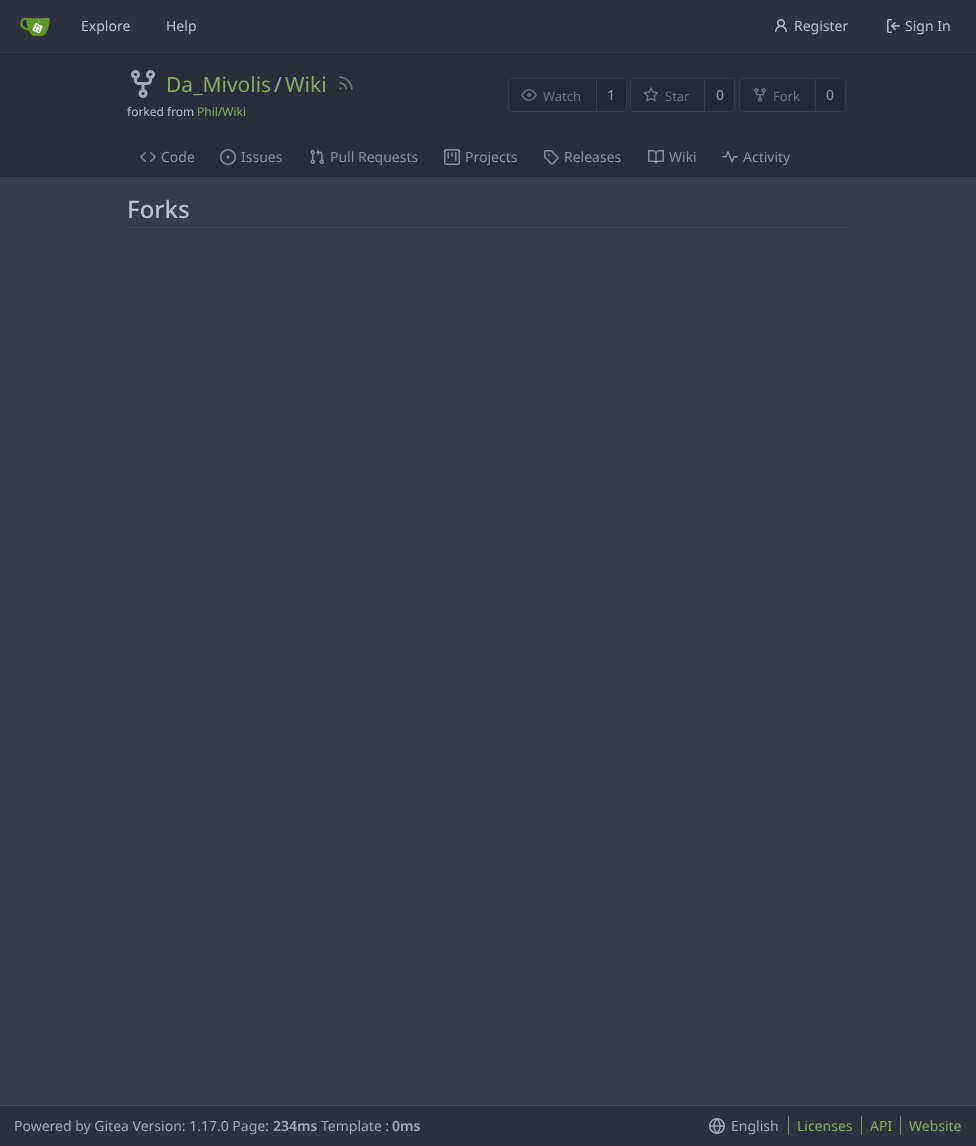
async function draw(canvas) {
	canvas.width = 976;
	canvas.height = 1146;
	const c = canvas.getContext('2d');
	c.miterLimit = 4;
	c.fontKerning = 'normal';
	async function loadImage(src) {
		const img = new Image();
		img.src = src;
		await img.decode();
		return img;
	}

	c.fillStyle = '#383c4a';
	c.fillRect(0, 0, 976, 1146);
	c.fillStyle = '#2e323e';
	c.fillRect(0, 0, 976, 52);
	c.drawImage(await loadImage('img1.png'), 20, 17, 30, 19);
	c.font = '14px Noto Sans';
	c.fillStyle = '#bbc0ca';
	c.fillText('Explore', 81, 31);
	c.fillText('Help', 166, 31);
	c.drawImage(await loadImage('img2.png'), 775, 19, 12, 13);
	c.fillText('Register', 794, 31);
	c.drawImage(await loadImage('img3.png'), 887, 19, 13, 14);
	c.fillText('Sign In', 905, 31);
	c.fillStyle = '#2a2e3a';
	c.fillRect(0, 53, 976, 124);
	c.drawImage(await loadImage('img4.png'), 131, 70, 24, 28);
	c.font = '21px Noto Sans';
	c.fillStyle = '#87ab63';
	c.fillText('Da_Mivolis', 166, 92);
	c.fillStyle = '#a6aab5';
	c.fillText('/', 274, 92);
	c.fillStyle = '#87ab63';
	c.fillText('Wiki', 285, 92);
	c.drawImage(await loadImage('img5.png'), 339, 76, 14, 14);
	c.font = '12px Noto Sans';
	c.fillStyle = '#bbc0ca';
	c.fillText('forked from', 127, 116);
	c.fillStyle = '#87ab63';
	c.fillText('Phil/Wiki', 197, 116);
	c.fillStyle = '#262a35';
	c.beginPath();
	c.roundRect(508.5, 78.5, 88, 33, [3.5, 0, 0, 3.5]);
	c.fill();
	c.strokeStyle = '#393d47';
	c.stroke();
	c.drawImage(await loadImage('img6.png'), 521, 89, 16, 12);
	c.font = '13px Noto Sans';
	c.fillStyle = '#6e727e';
	c.fillText('Watch', 543, 101);
	c.fillStyle = '#242832';
	c.beginPath();
	c.roundRect(597, 78, 30, 34, [0, 4, 4, 0]);
	c.fill();
	c.fillStyle = '#9fa1a629';
	c.beginPath();
	c.moveTo(597, 78);
	c.lineTo(623, 78);
	c.bezierCurveTo(625, 78, 627, 80, 627, 82);
	c.lineTo(627, 108);
	c.bezierCurveTo(627, 110, 625, 112, 623, 112);
	c.lineTo(597, 112);
	c.closePath();
	c.moveTo(597, 79);
	c.lineTo(623, 79);
	c.bezierCurveTo(624.5, 79, 626, 80.5, 626, 82);
	c.lineTo(626, 108);
	c.bezierCurveTo(626, 109.5, 624.5, 111, 623, 111);
	c.lineTo(597, 111);
	c.closePath();
	c.fill('evenodd');
	c.font = '500 14px Noto Sans';
	c.fillStyle = '#8b909b';
	c.fillText('1', 607, 100);
	c.fillStyle = '#262a35';
	c.beginPath();
	c.roundRect(630.5, 78.5, 74, 33, [3.5, 0, 0, 3.5]);
	c.fill();
	c.stroke();
	c.drawImage(await loadImage('img7.png'), 643, 87, 16, 15);
	c.font = '13px Noto Sans';
	c.fillStyle = '#6e727e';
	c.fillText('Star', 665, 101);
	c.fillStyle = '#242832';
	c.beginPath();
	c.roundRect(705, 78, 30, 34, [0, 4, 4, 0]);
	c.fill();
	c.fillStyle = '#9fa1a629';
	c.beginPath();
	c.moveTo(705, 78);
	c.lineTo(731, 78);
	c.bezierCurveTo(733, 78, 735, 80, 735, 82);
	c.lineTo(735, 108);
	c.bezierCurveTo(735, 110, 733, 112, 731, 112);
	c.lineTo(705, 112);
	c.closePath();
	c.moveTo(705, 79);
	c.lineTo(731, 79);
	c.bezierCurveTo(732.5, 79, 734, 80.5, 734, 82);
	c.lineTo(734, 108);
	c.bezierCurveTo(734, 109.5, 732.5, 111, 731, 111);
	c.lineTo(705, 111);
	c.closePath();
	c.fill('evenodd');
	c.font = '500 14px Noto Sans';
	c.fillStyle = '#8b909b';
	c.fillText('0', 716, 100);
	c.fillStyle = '#262a35';
	c.beginPath();
	c.roundRect(739.5, 78.5, 76, 33, [3.5, 0, 0, 3.5]);
	c.fill();
	c.stroke();
	c.drawImage(await loadImage('img8.png'), 754, 88, 12, 14);
	c.font = '13px Noto Sans';
	c.fillStyle = '#6e727e';
	c.fillText('Fork', 773, 101);
	c.fillStyle = '#242832';
	c.beginPath();
	c.roundRect(816, 78, 30, 34, [0, 4, 4, 0]);
	c.fill();
	c.fillStyle = '#9fa1a629';
	c.beginPath();
	c.moveTo(816, 78);
	c.lineTo(842, 78);
	c.bezierCurveTo(844, 78, 846, 80, 846, 82);
	c.lineTo(846, 108);
	c.bezierCurveTo(846, 110, 844, 112, 842, 112);
	c.lineTo(816, 112);
	c.closePath();
	c.moveTo(816, 79);
	c.lineTo(842, 79);
	c.bezierCurveTo(843.5, 79, 845, 80.5, 845, 82);
	c.lineTo(845, 108);
	c.bezierCurveTo(845, 109.5, 843.5, 111, 842, 111);
	c.lineTo(816, 111);
	c.closePath();
	c.fill('evenodd');
	c.font = '500 14px Noto Sans';
	c.fillStyle = '#8b909b';
	c.fillText('0', 826, 100);
	c.drawImage(await loadImage('img9.png'), 140, 152, 16, 10);
	c.font = '14px Noto Sans';
	c.fillText('Code', 161, 162);
	c.drawImage(await loadImage('img10.png'), 220, 149, 16, 16);
	c.fillText('Issues', 241, 162);
	c.drawImage(await loadImage('img11.png'), 310, 149, 14, 15);
	c.fillText('Pull Requests', 330, 162);
	c.drawImage(await loadImage('img12.png'), 444, 149, 16, 16);
	c.fillText('Projects', 465, 162);
	c.drawImage(await loadImage('img13.png'), 544, 150, 15, 15);
	c.fillText('Releases', 564, 162);
	c.drawImage(await loadImage('img14.png'), 648, 150, 16, 14);
	c.fillText('Wiki', 669, 162);
	c.drawImage(await loadImage('img15.png'), 722, 151, 16, 12);
	c.fillText('Activity', 743, 162);
	c.fillStyle = '#454a57';
	c.fillRect(127, 227, 723, 1);
	c.font = '500 24px Noto Sans';
	c.fillStyle = '#bbc0ca';
	c.fillText('Forks', 127, 218);
	c.fillStyle = '#2e323e';
	c.fillRect(0, 1106, 976, 40);
	c.fillStyle = '#454a57';
	c.fillRect(0, 1105, 976, 1);
	c.font = '14px Noto Sans';
	c.fillStyle = '#a6aab5';
	c.fillText('Powered by Gitea Version: 1.17.0 Page:', 14, 1131);
	c.font = '600 14px Noto Sans';
	c.fillText('234ms', 273, 1131);
	c.font = '14px Noto Sans';
	c.fillText('Template :', 321, 1131);
	c.font = '600 14px Noto Sans';
	c.fillText('0ms', 392, 1131);
	c.drawImage(await loadImage('img16.png'), 709, 1118, 16, 16);
	c.font = '14px Noto Sans';
	c.fillText('English', 731, 1131);
	c.fillStyle = '#87ab63';
	c.fillText('Licenses', 797, 1131);
	c.fillStyle = '#888';
	c.fillRect(788, 1116, 1, 19);
	c.fillStyle = '#87ab63';
	c.fillText('API', 870, 1131);
	c.fillStyle = '#888';
	c.fillRect(861, 1116, 1, 19);
	c.fillStyle = '#87ab63';
	c.fillText('Website', 909, 1131);
	c.fillStyle = '#888';
	c.fillRect(900, 1116, 1, 19);
}

draw(document.querySelector('canvas'));
